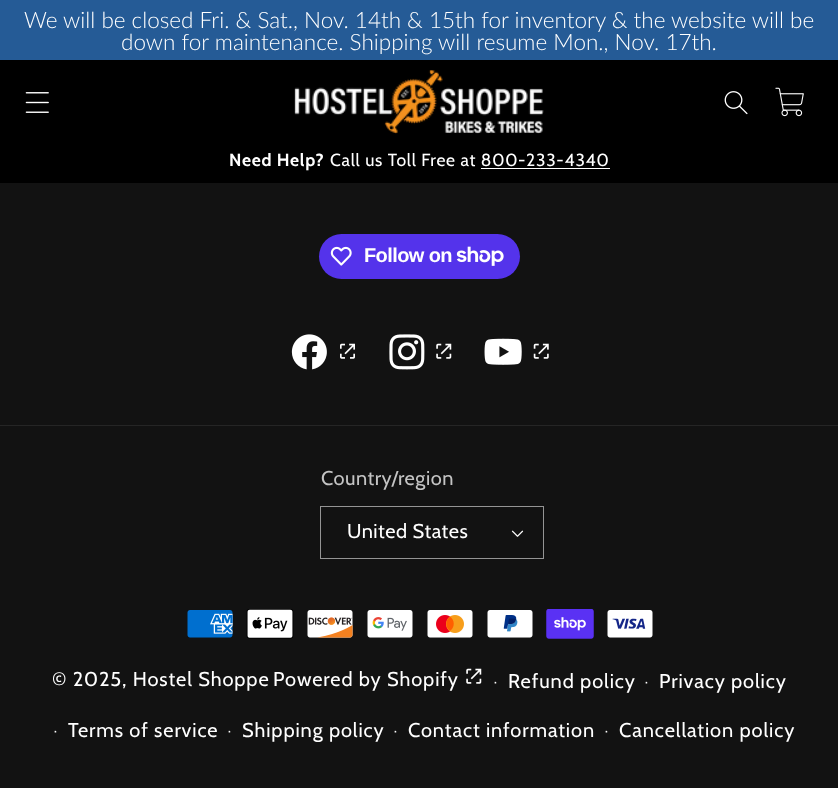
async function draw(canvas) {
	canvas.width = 838;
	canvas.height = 788;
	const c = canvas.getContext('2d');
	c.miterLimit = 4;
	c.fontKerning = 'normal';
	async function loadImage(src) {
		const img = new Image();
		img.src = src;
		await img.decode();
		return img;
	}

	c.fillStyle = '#121212';
	c.fillRect(0, 0, 838, 788);
	c.fillStyle = '#255b96';
	c.fillRect(0, 0, 838, 60);
	c.font = '300 22.5px Lato';
	c.fillStyle = '#fff';
	c.fillText('We will be closed Fri. & Sat., Nov. 14th & 15th for inventory & the website will be', 24, 28);
	c.fillText('down for maintenance. Shipping will resume Mon., Nov. 17th.', 121, 50);
	c.fillStyle = '#000';
	c.fillRect(0, 60, 838, 123);
	c.drawImage(await loadImage('img1.png'), 25, 92, 24, 21);
	c.drawImage(await loadImage('img2.png'), 294, 70, 250, 64);
	c.drawImage(await loadImage('img3.png'), 724, 91, 24, 24);
	c.drawImage(await loadImage('img4.png'), 775, 87, 29, 30);
	c.letterSpacing = '0.75px';
	c.font = 'bold 17.5px Cabin';
	c.fillStyle = '#fff';
	c.fillText('Need Help?', 229, 166);
	c.font = '17.5px Cabin';
	c.fillText('Call us Toll Free at 800-233-4340', 330, 166);
	c.fillRect(481, 168, 129, 1);
	c.fillStyle = '#5433eb';
	c.beginPath();
	c.roundRect(319, 234, 201, 45, 22.5);
	c.fill();
	c.drawImage(await loadImage('img5.png'), 330, 246, 22, 20);
	c.letterSpacing = '-0.6px';
	c.font = 'bold 20px Liberation Sans';
	c.fillStyle = '#fff';
	c.fillText('Follow on', 364, 262);
	c.drawImage(await loadImage('img6.png'), 456, 246, 48, 20);
	c.drawImage(await loadImage('img7.png'), 291, 334, 36, 36);
	c.drawImage(await loadImage('img8.png'), 340, 343, 15, 16);
	c.drawImage(await loadImage('img9.png'), 389, 334, 36, 36);
	c.drawImage(await loadImage('img10.png'), 436, 343, 16, 16);
	c.drawImage(await loadImage('img11.png'), 484, 338, 38, 27);
	c.drawImage(await loadImage('img12.png'), 533, 343, 16, 16);
	c.fillStyle = '#252525';
	c.fillRect(0, 425, 838, 1);
	c.letterSpacing = '0.5px';
	c.font = '20px Cabin';
	c.fillStyle = '#c4c4c4';
	c.fillText('Country/region', 321, 485);
	c.drawImage(await loadImage('img13.png'), 511, 530, 13, 7);
	c.strokeStyle = '#949494';
	c.strokeRect(320.5, 506.5, 223, 52);
	c.fillStyle = '#fff';
	c.fillText('United States', 347, 538);
	c.drawImage(await loadImage('img14.png'), 187, 610, 46, 28);
	c.drawImage(await loadImage('img15.png'), 246, 609, 48, 30);
	c.drawImage(await loadImage('img16.png'), 307, 610, 46, 28);
	c.drawImage(await loadImage('img17.png'), 367, 610, 46, 28);
	c.drawImage(await loadImage('img18.png'), 427, 610, 46, 28);
	c.drawImage(await loadImage('img19.png'), 487, 610, 46, 28);
	c.drawImage(await loadImage('img20.png'), 546, 609, 48, 30);
	c.drawImage(await loadImage('img21.png'), 607, 610, 46, 28);
	c.letterSpacing = '0.9px';
	c.fillText('© 2025, Hostel Shoppe', 52, 686);
	c.fillText('Powered by Shopify', 273, 686);
	c.drawImage(await loadImage('img10.png'), 466, 668, 16, 16);
	c.font = '12px Cabin';
	c.fillText('·', 494, 686);
	c.font = '20px Cabin';
	c.fillText('Refund policy', 508, 688);
	c.font = '12px Cabin';
	c.fillText('·', 645, 686);
	c.font = '20px Cabin';
	c.fillText('Privacy policy', 659, 688);
	c.font = '12px Cabin';
	c.fillText('·', 54, 735);
	c.font = '20px Cabin';
	c.fillText('Terms of service', 68, 737);
	c.font = '12px Cabin';
	c.fillText('·', 228, 735);
	c.font = '20px Cabin';
	c.fillText('Shipping policy', 242, 737);
	c.font = '12px Cabin';
	c.fillText('·', 394, 735);
	c.font = '20px Cabin';
	c.fillText('Contact information', 408, 737);
	c.font = '12px Cabin';
	c.fillText('·', 605, 735);
	c.font = '20px Cabin';
	c.fillText('Cancellation policy', 619, 737);
}

draw(document.querySelector('canvas'));
